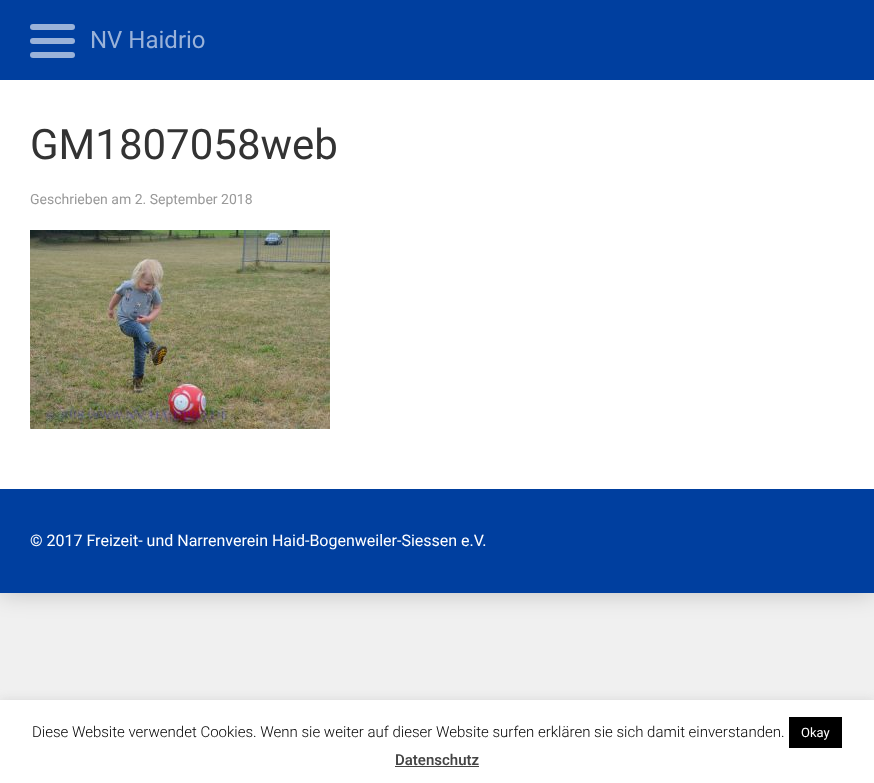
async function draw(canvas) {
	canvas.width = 874;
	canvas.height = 783;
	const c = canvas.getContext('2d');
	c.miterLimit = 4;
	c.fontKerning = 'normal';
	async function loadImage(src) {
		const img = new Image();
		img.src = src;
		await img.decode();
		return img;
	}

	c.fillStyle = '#f0f0f0';
	c.fillRect(0, 0, 874, 783);
	c.fillStyle = '#00000033';
	c.filter = 'blur(12.5px)';
	c.beginPath();
	c.rect(0, 0, 874, 593);
	c.fill();
	c.filter = 'none';
	c.fillStyle = '#fff';
	c.fillRect(0, 80, 874, 409);
	c.fillStyle = '#003f9f';
	c.fillRect(0, 0, 874, 80);
	c.fillStyle = '#99b2d9';
	c.beginPath();
	c.roundRect(30, 24, 45, 6, 3);
	c.fill();
	c.beginPath();
	c.roundRect(30, 38, 45, 6, 3);
	c.fill();
	c.beginPath();
	c.roundRect(30, 52, 45, 6, 3);
	c.fill();
	c.font = '24px Roboto';
	c.fillText('NV Haidrio', 90, 48);
	c.font = '42px Roboto';
	c.fillStyle = '#333';
	c.fillText('GM1807058web', 30, 159);
	c.font = '14px Roboto';
	c.fillStyle = '#999';
	c.fillText('Geschrieben am 2. September 2018', 30, 204);
	c.drawImage(await loadImage('img1.png'), 30, 230, 300, 199);
	c.fillStyle = '#003f9f';
	c.fillRect(0, 489, 874, 104);
	c.font = '16px Roboto';
	c.fillStyle = '#fff';
	c.fillText('© 2017 Freizeit- und Narrenverein Haid-Bogenweiler-Siessen e.V.', 30, 546);
	c.fillStyle = '#acabab4d';
	c.filter = 'blur(5px)';
	c.beginPath();
	c.rect(0, 699, 874, 83);
	c.fill();
	c.filter = 'none';
	c.fillStyle = '#fff';
	c.fillRect(0, 700, 874, 83);
	c.font = '300 15px Roboto';
	c.fillStyle = '#000';
	c.fillText('Diese Website verwendet Cookies. Wenn sie weiter auf dieser Website surfen erklären sie sich damit einverstanden.', 32, 737);
	c.fillRect(789, 717, 53, 31);
	c.font = '13px Roboto';
	c.fillStyle = '#fff';
	c.fillText('Okay', 801, 737);
	c.font = '500 15px Roboto';
	c.fillStyle = '#444';
	c.fillText('Datenschutz', 395, 765);
	c.fillRect(395, 766, 84, 1);
}

draw(document.querySelector('canvas'));
